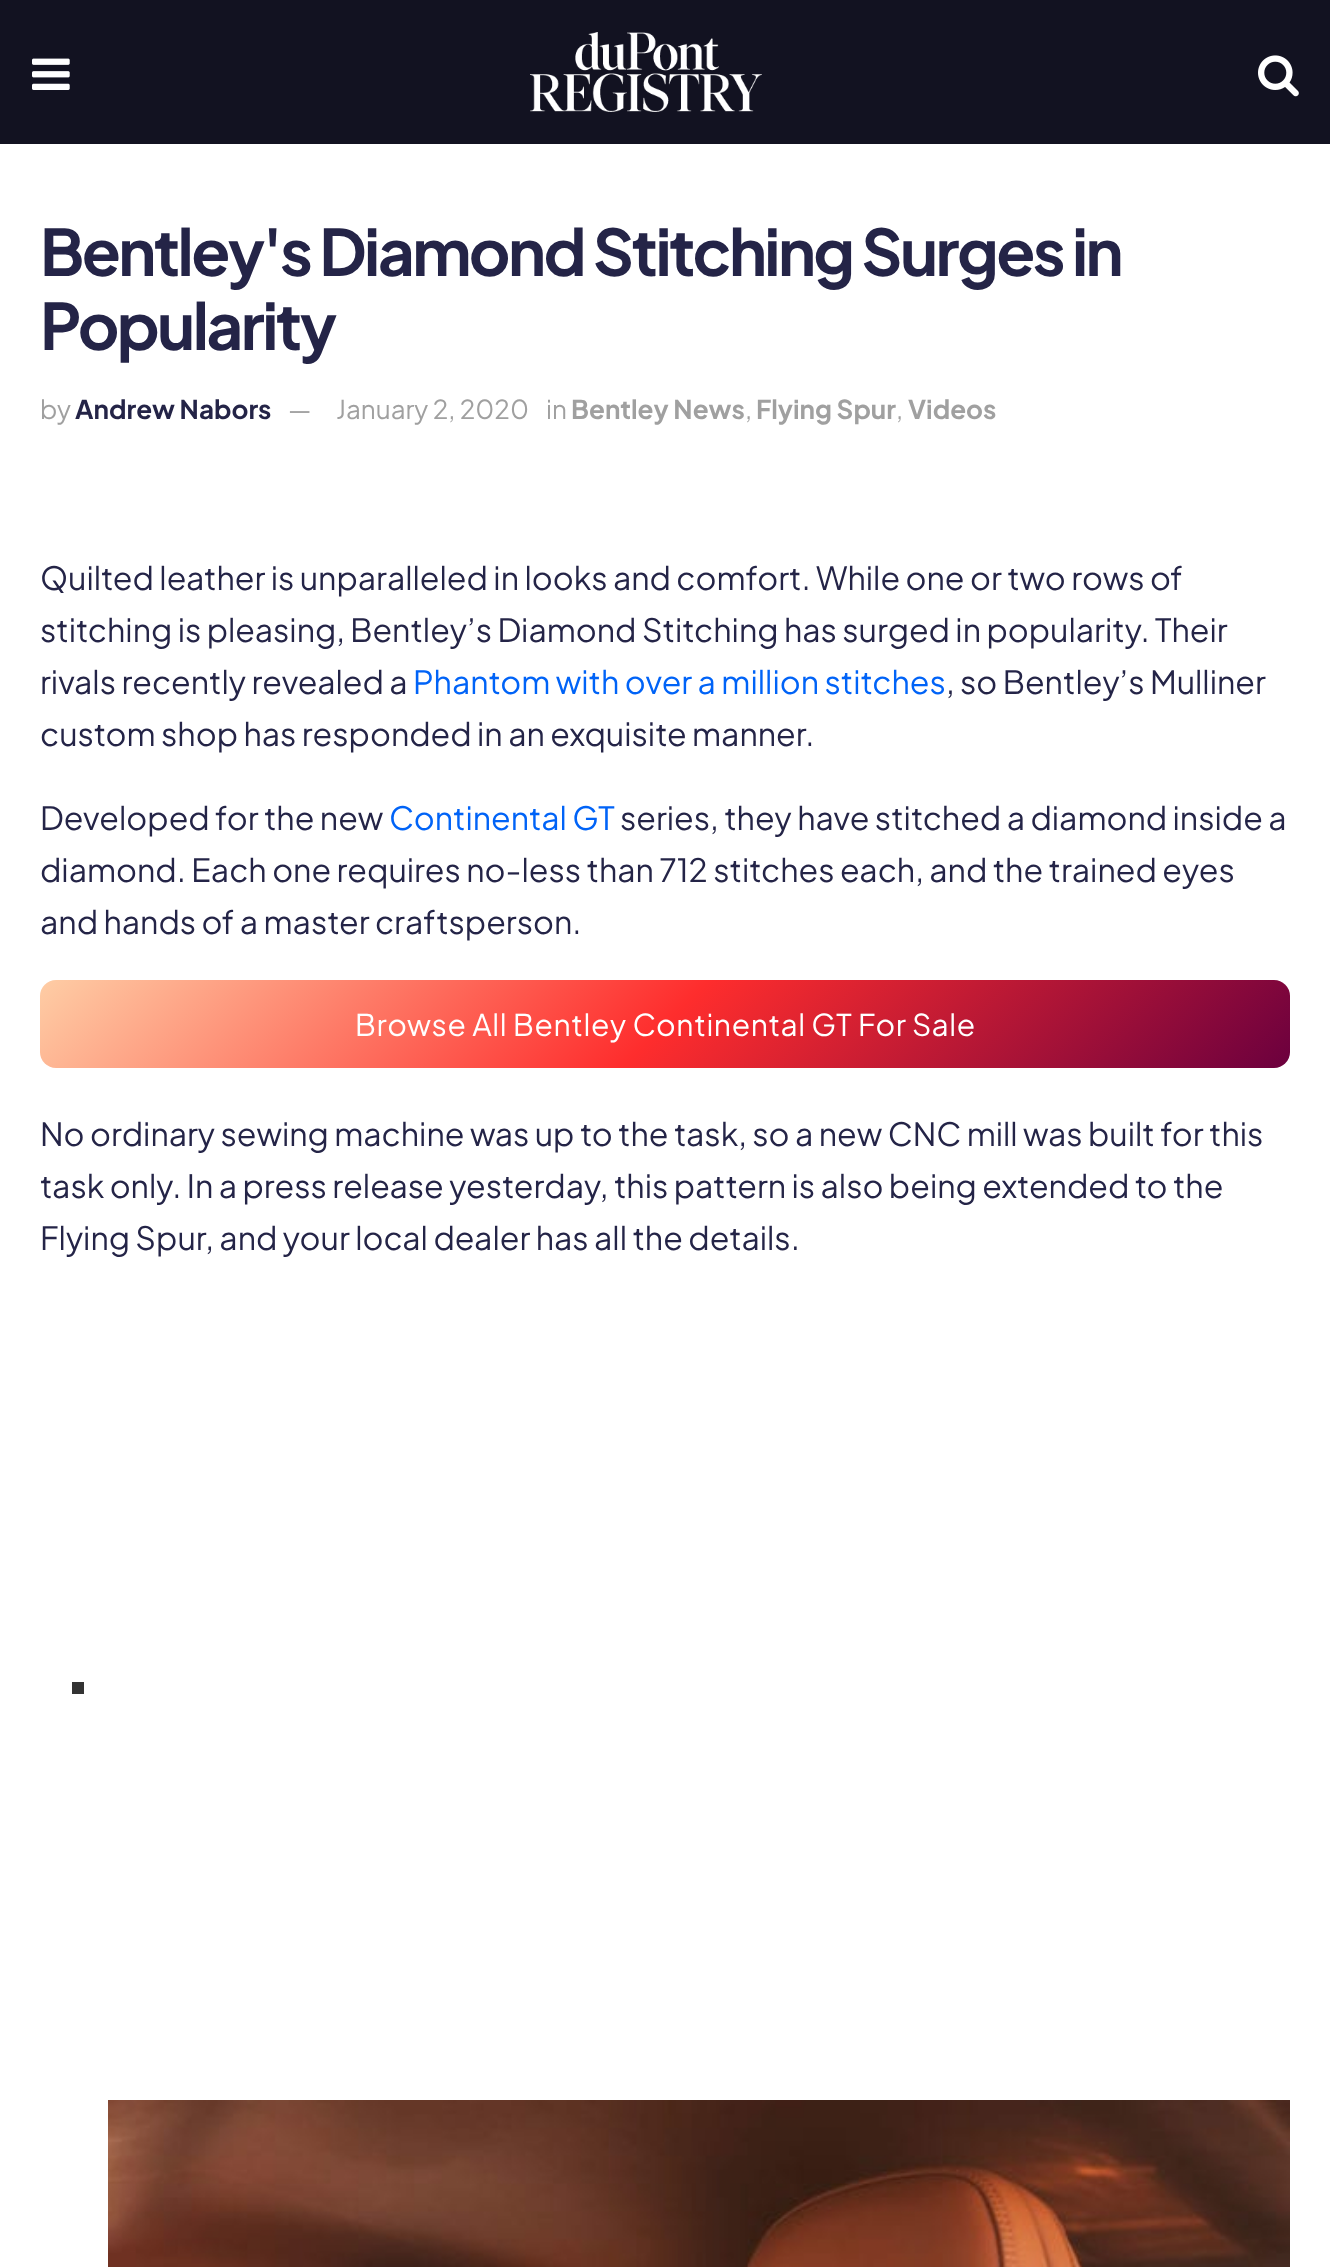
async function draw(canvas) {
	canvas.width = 1330;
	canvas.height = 2267;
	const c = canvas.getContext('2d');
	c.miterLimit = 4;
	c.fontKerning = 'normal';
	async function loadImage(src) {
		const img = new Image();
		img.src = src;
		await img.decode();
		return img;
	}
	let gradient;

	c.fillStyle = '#fff';
	c.fillRect(0, 0, 1330, 2267);
	c.fillStyle = '#121221';
	c.fillRect(0, 0, 1330, 144);
	c.drawImage(await loadImage('img1.png'), 32, 58, 38, 32);
	c.drawImage(await loadImage('img2.png'), 530, 32, 232, 80);
	c.drawImage(await loadImage('img3.png'), 1258, 55, 41, 42);
	c.letterSpacing = '-2.55px';
	c.font = 'bold 64px Plus Jakarta Sans';
	c.fillStyle = '#242447';
	c.fillText('Bentley\'s Diamond Stitching Surges in', 40, 276);
	c.fillText('Popularity', 40, 350);
	c.letterSpacing = '0px';
	c.font = '26px Plus Jakarta Sans';
	c.fillStyle = '#a0a0a0';
	c.fillText('by', 40, 419);
	c.font = 'bold 26px Plus Jakarta Sans';
	c.fillStyle = '#242447';
	c.fillText('Andrew Nabors', 75, 419);
	c.font = '26px Plus Jakarta Sans';
	c.fillStyle = '#a0a0a0';
	for (const [text, x, y] of [
		['—', 288, 419],
		['January 2, 2020', 336, 419],
		['in', 546, 419],
	]) {
		c.fillText(text, x, y);
	}
	c.font = 'bold 26px Plus Jakarta Sans';
	c.fillText('Bentley News', 571, 419);
	c.font = '26px Plus Jakarta Sans';
	c.fillText(',', 745, 419);
	c.font = 'bold 26px Plus Jakarta Sans';
	c.fillText('Flying Spur', 756, 419);
	c.font = '26px Plus Jakarta Sans';
	c.fillText(',', 896, 419);
	c.font = 'bold 26px Plus Jakarta Sans';
	c.fillText('Videos', 908, 419);
	c.font = '32px Plus Jakarta Sans';
	c.fillStyle = '#242447';
	for (const [text, x, y] of [
		['Quilted leather is unparalleled in looks and comfort. While one or two rows of', 40, 590],
		['stitching is pleasing, Bentley’s Diamond Stitching has surged in popularity. Their', 40, 642],
		['rivals recently revealed a', 40, 694],
	]) {
		c.fillText(text, x, y);
	}
	c.fillStyle = '#0063f7';
	c.fillText('Phantom with over a million stitches', 413, 694);
	c.fillStyle = '#242447';
	for (const [text, x, y] of [
		[', so Bentley’s Mulliner', 946, 694],
		['custom shop has responded in an exquisite manner.', 40, 746],
		['Developed for the new', 40, 830],
	]) {
		c.fillText(text, x, y);
	}
	c.fillStyle = '#0063f7';
	c.fillText('Continental GT', 389, 830);
	c.fillStyle = '#242447';
	for (const [text, x, y] of [
		['series, they have stitched a diamond inside a', 620, 830],
		['diamond. Each one requires no-less than 712 stitches each, and the trained eyes', 40, 882],
		['and hands of a master craftsperson.', 40, 934],
	]) {
		c.fillText(text, x, y);
	}
	gradient = c.createLinearGradient(330, 690, 1000, 1359);
	gradient.addColorStop(0, '#fecda5');
	gradient.addColorStop(0.5, '#fe2d2d');
	gradient.addColorStop(1, '#6b003e');
	c.fillStyle = gradient;
	c.beginPath();
	c.roundRect(40, 980, 1250, 88, 16);
	c.fill();
	c.letterSpacing = '0.6px';
	c.font = '30px Plus Jakarta Sans';
	c.fillStyle = '#fff';
	c.fillText('Browse All Bentley Continental GT For Sale', 355, 1036);
	c.letterSpacing = '0px';
	c.font = '32px Plus Jakarta Sans';
	c.fillStyle = '#242447';
	for (const [text, x, y] of [
		['No ordinary sewing machine was up to the task, so a new CNC mill was built for this', 40, 1146],
		['task only. In a press release yesterday, this pattern is also being extended to the', 40, 1198],
		['Flying Spur, and your local dealer has all the details.', 40, 1250],
	]) {
		c.fillText(text, x, y);
	}
	c.fillStyle = '#333';
	c.fillRect(72, 1682, 12, 12);
	c.drawImage(await loadImage('img4.png'), 108, 2100, 1182, 167);
}

draw(document.querySelector('canvas'));
